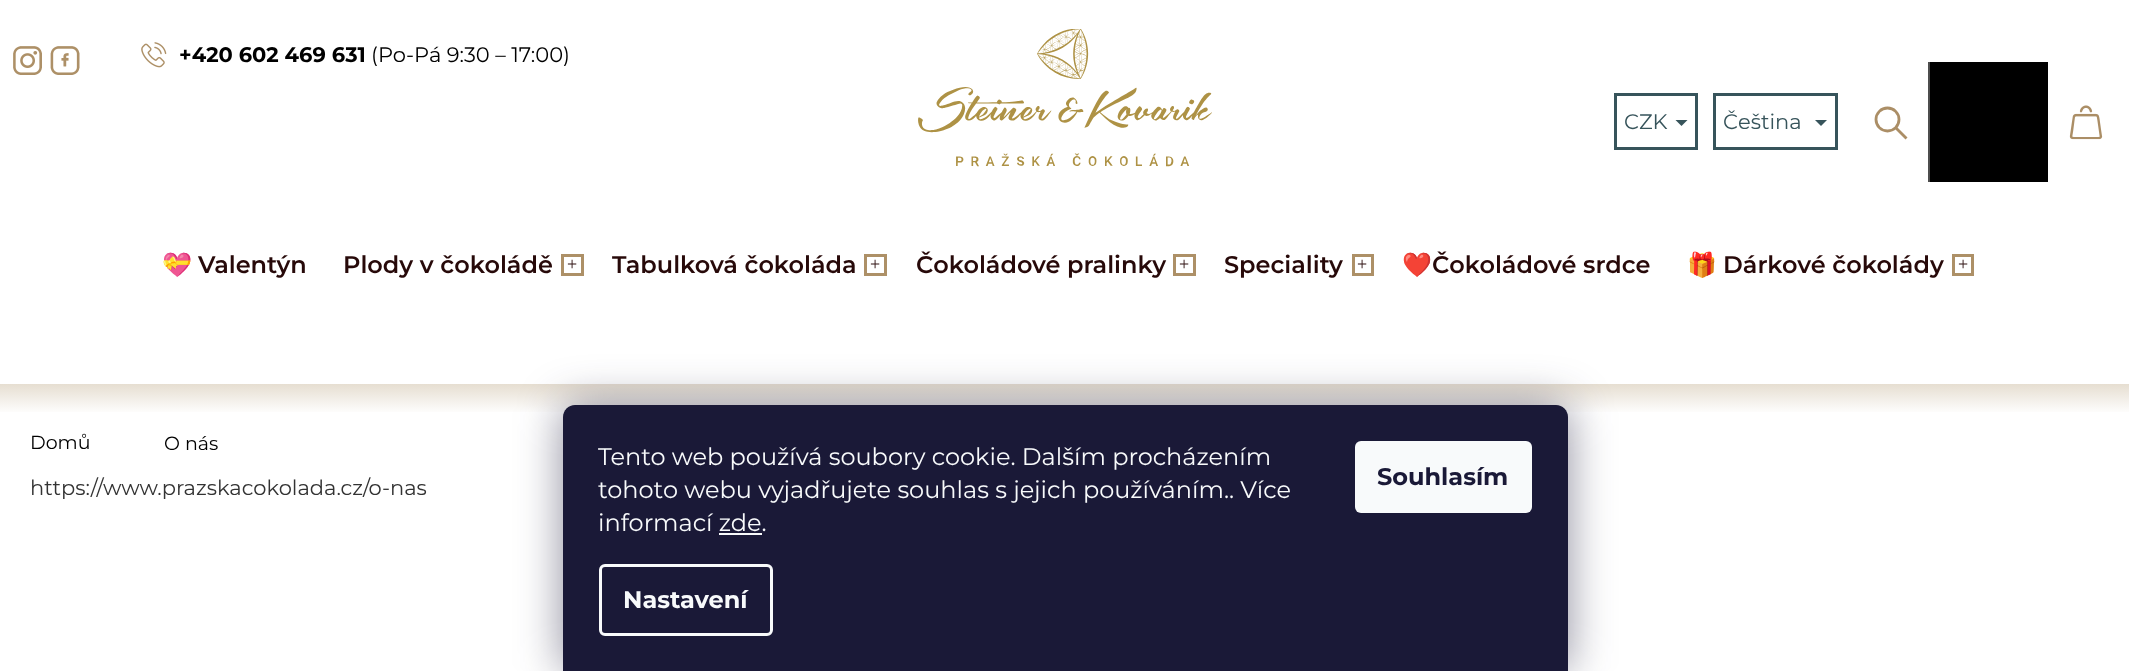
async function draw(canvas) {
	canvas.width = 2151;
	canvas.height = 671;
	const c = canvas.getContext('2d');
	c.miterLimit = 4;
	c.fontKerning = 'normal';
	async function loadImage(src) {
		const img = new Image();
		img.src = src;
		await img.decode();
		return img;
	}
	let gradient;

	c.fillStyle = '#fff';
	c.fillRect(0, 0, 2151, 671);
	c.drawImage(await loadImage('img1.png'), 13, 46, 29, 29);
	c.drawImage(await loadImage('img2.png'), 50, 46, 30, 29);
	c.drawImage(await loadImage('img3.png'), 141, 42, 26, 26);
	c.font = 'bold 21px Montserrat';
	c.fillStyle = '#000';
	c.fillText('+420 602 469 631', 179, 62);
	c.font = '21px Montserrat';
	c.fillText('(Po-Pá 9:30 – 17:00)', 371, 62);
	c.drawImage(await loadImage('img4.png'), 918, 29, 294, 138);
	c.strokeStyle = '#37545b';
	c.lineWidth = 3;
	c.strokeRect(1615.5, 94.5, 81, 54);
	c.fillStyle = '#37545b';
	c.fillText('CZK', 1624, 129);
	c.beginPath();
	c.moveTo(1675.5, 120);
	c.lineTo(1687.5, 120);
	c.lineTo(1681.5, 126);
	c.closePath();
	c.fill();
	c.strokeRect(1714.5, 94.5, 122, 54);
	c.fillText('Čeština', 1723, 129);
	c.beginPath();
	c.moveTo(1815, 120);
	c.lineTo(1827, 120);
	c.lineTo(1821, 126);
	c.closePath();
	c.fill();
	c.beginPath();
	c.arc(1887.5, 119.5, 11.5, 0, 2 * Math.PI);
	c.strokeStyle = '#ab8e66';
	c.lineWidth = 2.8;
	c.stroke();
	c.beginPath();
	c.moveTo(1895.5, 127.5);
	c.lineTo(1906.5, 138.5);
	c.stroke();
	c.fillStyle = '#000';
	c.fillRect(1930, 62, 118, 120);
	c.fillStyle = '#4d4d4d';
	c.fillRect(1928, 62, 2, 120);
	c.drawImage(await loadImage('img5.png'), 2069, 105, 34, 35);
	c.font = 'bold 24px Noto Color Emoji';
	c.fillStyle = '#270909';
	c.fillText('💝', 162, 273);
	c.font = '600 24px Montserrat';
	c.fillText('Valentýn', 198, 273);
	c.fillText('Plody v čokoládě', 343, 273);
	c.strokeStyle = '#ad9067';
	c.lineWidth = 3;
	c.strokeRect(562.5, 255.5, 20, 19);
	c.font = '18px Liberation Serif';
	c.fillText('+', 567, 270);
	c.font = '600 24px Montserrat';
	c.fillText('Tabulková čokoláda', 612, 273);
	c.strokeRect(865.5, 255.5, 20, 19);
	c.font = '18px Liberation Serif';
	c.fillText('+', 870, 270);
	c.font = '600 24px Montserrat';
	c.fillText('Čokoládové pralinky', 916, 273);
	c.strokeRect(1174.5, 255.5, 20, 19);
	c.font = '18px Liberation Serif';
	c.fillText('+', 1179, 270);
	c.font = '600 24px Montserrat';
	c.fillText('Speciality', 1224, 273);
	c.strokeRect(1353.5, 255.5, 19, 19);
	c.font = '18px Liberation Serif';
	c.fillText('+', 1357, 270);
	c.font = 'bold 24px Noto Color Emoji';
	c.fillText('❤️', 1402, 273);
	c.font = '600 24px Montserrat';
	c.fillText('Čokoládové srdce', 1432, 273);
	c.font = 'bold 24px Noto Color Emoji';
	c.fillText('🎁', 1687, 273);
	c.font = '600 24px Montserrat';
	c.fillText('Dárkové čokolády', 1723, 273);
	c.strokeRect(1953.5, 255.5, 19, 19);
	c.font = '18px Liberation Serif';
	c.fillText('+', 1958, 270);
	gradient = c.createLinearGradient(1064, 384, 1064, 414);
	gradient.addColorStop(0, '#e6ded1');
	gradient.addColorStop(1, '#fff');
	c.fillStyle = gradient;
	c.fillRect(0, 384, 2129, 28);
	c.font = '19px Montserrat';
	c.fillStyle = '#000';
	c.fillText('Domů', 30, 449);
	c.fillText('O nás', 164, 450);
	c.font = '21px Montserrat';
	c.fillStyle = '#333';
	c.fillText('https://www.prazskacokolada.cz/o-nas', 30, 495);
	c.fillStyle = '#1b193980';
	c.filter = 'blur(22.5px)';
	c.beginPath();
	c.roundRect(563, 405, 1005, 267, 12);
	c.fill();
	c.filter = 'none';
	c.fillStyle = '#1a1937';
	c.beginPath();
	c.moveTo(575, 405);
	c.lineTo(1556, 405);
	c.bezierCurveTo(1562.5, 405, 1568, 410.5, 1568, 417);
	c.lineTo(1568, 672);
	c.lineTo(563, 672);
	c.lineTo(563, 417);
	c.bezierCurveTo(563, 410.5, 568.5, 405, 575, 405);
	c.closePath();
	c.fill();
	c.font = '24px Montserrat';
	c.fillStyle = '#f8fafb';
	for (const [text, x, y] of [
		['Tento web používá soubory cookie. Dalším procházením', 598, 465],
		['tohoto webu vyjadřujete souhlas s jejich používáním.. Více', 598, 498],
		['informací zde.', 598, 531],
	]) {
		c.fillText(text, x, y);
	}
	c.fillRect(719, 533, 43, 2);
	c.beginPath();
	c.roundRect(600.5, 565.5, 171, 69, 4.5);
	c.strokeStyle = '#f8fafb';
	c.stroke();
	c.font = 'bold 24px Montserrat';
	c.fillText('Nastavení', 623, 608);
	c.beginPath();
	c.roundRect(1355, 441, 177, 72, 6);
	c.fill();
	c.fillStyle = '#1a1937';
	c.fillText('Souhlasím', 1377, 485);
}

draw(document.querySelector('canvas'));
